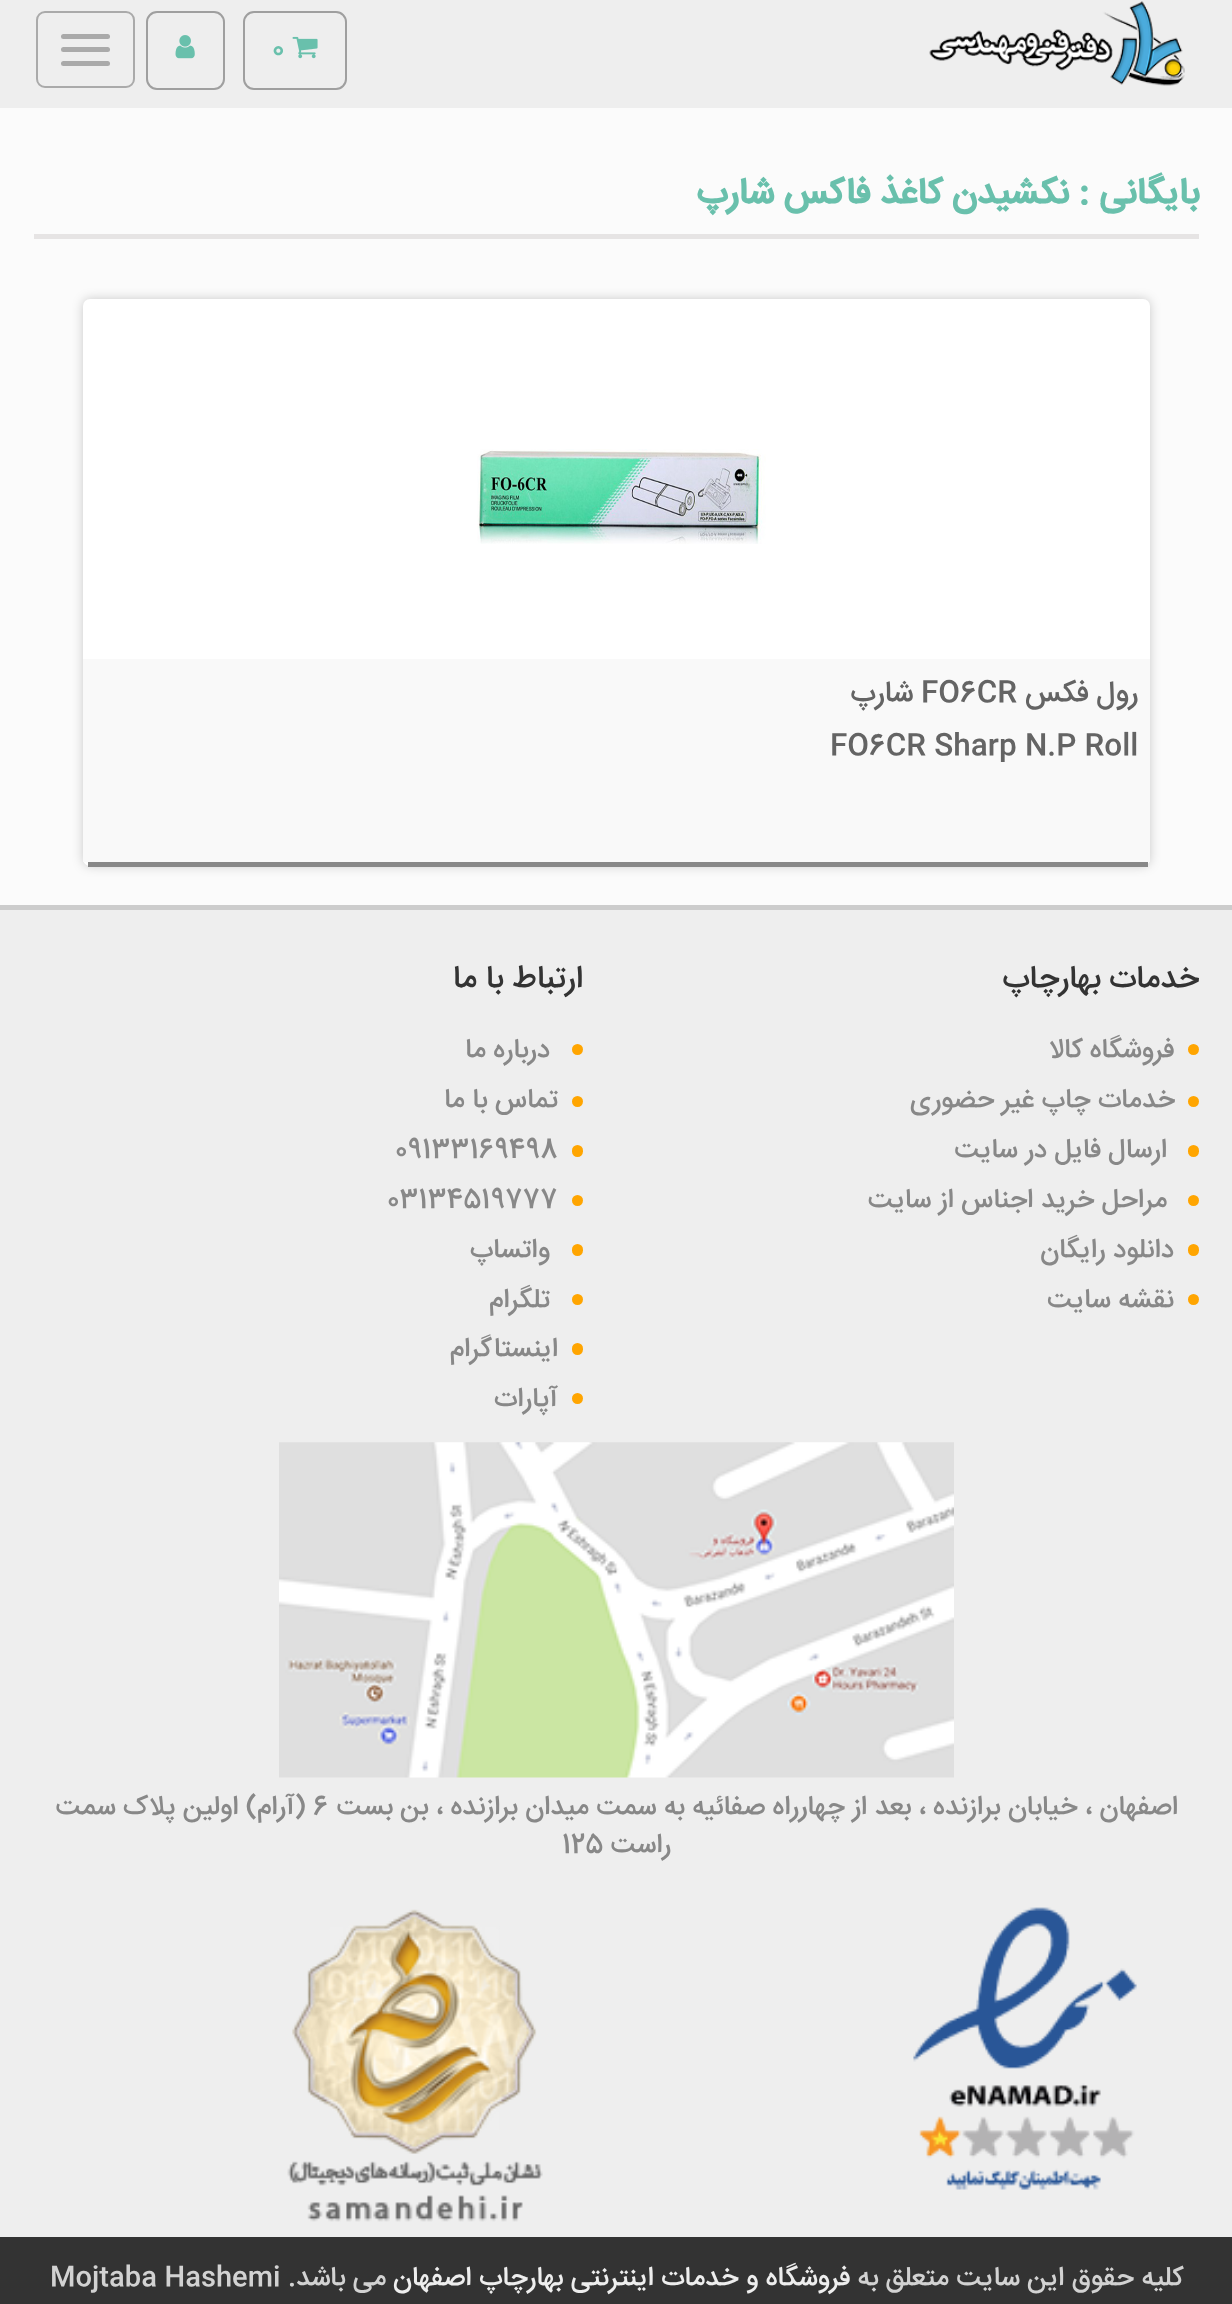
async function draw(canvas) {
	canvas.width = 1232;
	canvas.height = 2304;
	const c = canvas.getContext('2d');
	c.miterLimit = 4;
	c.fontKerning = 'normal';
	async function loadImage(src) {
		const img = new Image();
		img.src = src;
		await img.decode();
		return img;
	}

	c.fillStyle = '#eee';
	c.fillRect(0, 0, 1232, 2304);
	c.drawImage(await loadImage('img1.png'), 929, 1, 256, 85);
	c.beginPath();
	c.roundRect(244, 12, 102, 77, 10);
	c.strokeStyle = '#9f9f9f';
	c.lineWidth = 2;
	c.stroke();
	c.drawImage(await loadImage('img2.png'), 292, 36, 26, 23);
	c.font = '500 27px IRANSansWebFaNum';
	c.fillStyle = '#69c0ac';
	c.fillText('0', 272, 56);
	c.beginPath();
	c.roundRect(147, 12, 77, 77, 10);
	c.stroke();
	c.drawImage(await loadImage('img3.png'), 175, 35, 20, 24);
	c.beginPath();
	c.roundRect(37, 12, 97, 75, 8);
	c.strokeStyle = '#aaa';
	c.stroke();
	c.fillStyle = '#aaa';
	c.beginPath();
	c.roundRect(61, 34, 49, 5, 2.5);
	c.fill();
	c.beginPath();
	c.roundRect(61, 47, 49, 5, 2.5);
	c.fill();
	c.beginPath();
	c.roundRect(61, 61, 49, 5, 2.5);
	c.fill();
	c.fillStyle = '#fbfbfb';
	c.fillRect(0, 108, 1232, 797);
	c.fillStyle = '#e6e4e4';
	c.fillRect(34, 234, 1165, 5);
	c.direction = 'rtl';
	c.font = 'bold 36px IRANSansWebFaNum';
	c.fillStyle = '#69c0ac';
	c.fillText('بایگانی :', 1199, 203);
	c.fillText('نکشیدن کاغذ فاکس شارپ', 1069, 203);
	c.fillStyle = '#00000033';
	c.filter = 'blur(5.5px)';
	c.beginPath();
	c.roundRect(83, 299, 1067, 567, 7);
	c.fill();
	c.filter = 'none';
	c.fillStyle = '#fff';
	c.beginPath();
	c.roundRect(83, 299, 1067, 567, 7);
	c.fill();
	c.fillStyle = '#888';
	c.fillRect(88, 862, 1060, 5);
	c.drawImage(await loadImage('img4.png'), 477, 449, 289, 95);
	c.fillStyle = '#f9f9f9';
	c.fillRect(83, 659, 1067, 203);
	c.font = '500 29.25px IRANSansWebFaNum';
	c.fillStyle = '#646464';
	c.fillText('رول فکس', 1138, 701);
	c.direction = 'ltr';
	c.fillText('FO6CR', 921, 701);
	c.direction = 'rtl';
	c.fillText('شارپ', 913, 701);
	c.direction = 'ltr';
	c.fillText('FO6CR Sharp N.P Roll', 830, 754);
	c.fillStyle = '#ccc';
	c.fillRect(0, 905, 1232, 5);
	c.direction = 'rtl';
	c.font = '500 31.5px IRANSansWebFaNum';
	c.fillStyle = '#333';
	c.fillText('خدمات بهارچاپ', 1199, 987);
	c.fillStyle = '#ffa500';
	c.beginPath();
	c.arc(1193.5, 1049.5, 5.5, 0, 2 * Math.PI);
	c.fill();
	c.font = '500 27px IRANSansWebFaNum';
	c.fillStyle = '#888';
	c.fillText('فروشگاه کالا', 1174, 1057);
	c.fillStyle = '#ffa500';
	c.beginPath();
	c.arc(1193.5, 1101.5, 5.5, 0, 2 * Math.PI);
	c.fill();
	c.fillStyle = '#888';
	c.fillText('خدمات چاپ غیر حضوری', 1175, 1107);
	c.fillStyle = '#ffa500';
	c.beginPath();
	c.roundRect(1188, 1145, 11, 12, 5.5);
	c.fill();
	c.fillStyle = '#888';
	c.fillText('ارسال فایل در سايت', 1167, 1157);
	c.fillStyle = '#ffa500';
	c.beginPath();
	c.arc(1193.5, 1200.5, 5.5, 0, 2 * Math.PI);
	c.fill();
	c.fillStyle = '#888';
	c.fillText('مراحل خرید اجناس از سایت', 1167, 1207);
	c.fillStyle = '#ffa500';
	c.beginPath();
	c.roundRect(1188, 1244, 11, 12, 5.5);
	c.fill();
	c.fillStyle = '#888';
	c.fillText('دانلود رایگان', 1174, 1257);
	c.fillStyle = '#ffa500';
	c.beginPath();
	c.arc(1193.5, 1299.5, 5.5, 0, 2 * Math.PI);
	c.fill();
	c.fillStyle = '#888';
	c.fillText('نقشه سایت', 1174, 1307);
	c.font = '500 31.5px IRANSansWebFaNum';
	c.fillStyle = '#333';
	c.fillText('ارتباط با ما', 583, 987);
	c.fillStyle = '#ffa500';
	c.beginPath();
	c.arc(577.5, 1049.5, 5.5, 0, 2 * Math.PI);
	c.fill();
	c.font = '500 27px IRANSansWebFaNum';
	c.fillStyle = '#888';
	c.fillText('درباره ما', 550, 1057);
	c.fillStyle = '#ffa500';
	c.beginPath();
	c.arc(577.5, 1101.5, 5.5, 0, 2 * Math.PI);
	c.fill();
	c.fillStyle = '#888';
	c.fillText('تماس با ما', 558, 1107);
	c.fillStyle = '#ffa500';
	c.beginPath();
	c.roundRect(572, 1145, 11, 12, 5.5);
	c.fill();
	c.direction = 'ltr';
	c.fillStyle = '#888';
	c.fillText('09133169498', 395, 1157);
	c.fillStyle = '#ffa500';
	c.beginPath();
	c.arc(577.5, 1200.5, 5.5, 0, 2 * Math.PI);
	c.fill();
	c.fillStyle = '#888';
	c.fillText('03134519777', 387, 1207);
	c.fillStyle = '#ffa500';
	c.beginPath();
	c.roundRect(572, 1244, 11, 12, 5.5);
	c.fill();
	c.direction = 'rtl';
	c.fillStyle = '#888';
	c.fillText('واتساپ', 550, 1257);
	c.fillStyle = '#ffa500';
	c.beginPath();
	c.arc(577.5, 1299.5, 5.5, 0, 2 * Math.PI);
	c.fill();
	c.fillStyle = '#888';
	c.fillText('تلگرام', 550, 1307);
	c.fillStyle = '#ffa500';
	c.beginPath();
	c.roundRect(572, 1343, 11, 12, 5.5);
	c.fill();
	c.fillStyle = '#888';
	c.fillText('اینستاگرام', 558, 1356);
	c.fillStyle = '#ffa500';
	c.beginPath();
	c.arc(577.5, 1398.5, 5.5, 0, 2 * Math.PI);
	c.fill();
	c.fillStyle = '#888';
	c.fillText('آپارات', 558, 1406);
	c.drawImage(await loadImage('img5.png'), 279, 1442, 675, 336);
	c.fillText('اصفهان ، خیابان برازنده ، بعد از چهارراه صفائیه به سمت میدان برازنده ، بن بست', 1178, 1814);
	c.direction = 'ltr';
	c.fillText('6', 313, 1814);
	c.direction = 'rtl';
	c.fillText('(آرام) اولین پلاک سمت', 306, 1814);
	c.fillText('راست', 671, 1852);
	c.direction = 'ltr';
	c.fillText('125', 562, 1852);
	c.drawImage(await loadImage('img6.png'), 913, 1907, 224, 283);
	c.drawImage(await loadImage('img7.png'), 287, 1909, 256, 313);
	c.fillStyle = '#333';
	c.fillRect(0, 2237, 1232, 67);
	c.direction = 'rtl';
	c.fillStyle = '#d2d2d2';
	c.fillText('کلیه حقوق این سایت متعلق به', 1183, 2285);
	c.fillStyle = '#eee';
	c.fillText('فروشگاه و خدمات اینترنتی بهارچاپ اصفهان', 850, 2285);
	c.fillStyle = '#d2d2d2';
	c.fillText('می باشد.', 386, 2285);
	c.direction = 'ltr';
	c.fillText('Mojtaba Hashemi', 50, 2285);
}

draw(document.querySelector('canvas'));
